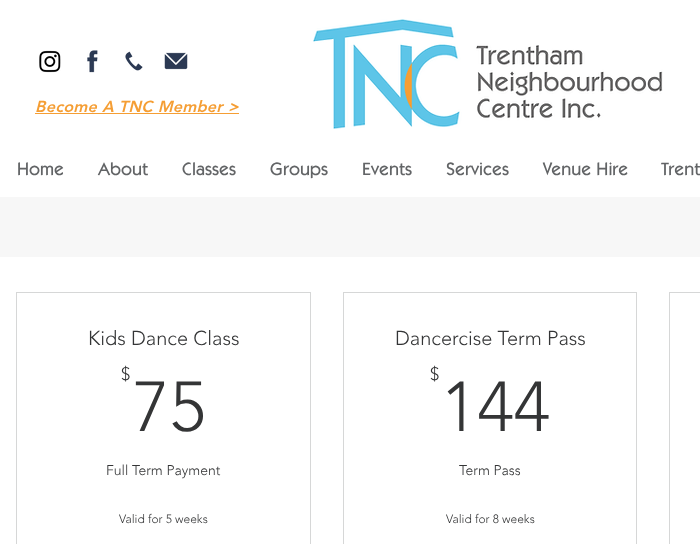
async function draw(canvas) {
	canvas.width = 700;
	canvas.height = 544;
	const c = canvas.getContext('2d');
	c.miterLimit = 4;
	c.fontKerning = 'normal';
	async function loadImage(src) {
		const img = new Image();
		img.src = src;
		await img.decode();
		return img;
	}

	c.fillStyle = '#f7f7f7';
	c.fillRect(0, 0, 700, 544);
	c.fillStyle = '#fff';
	c.fillRect(0, 0, 700, 197);
	c.drawImage(await loadImage('img1.png'), 39, 50, 22, 23);
	c.drawImage(await loadImage('img2.png'), 87, 50, 11, 23);
	c.drawImage(await loadImage('img3.png'), 125, 51, 18, 20);
	c.drawImage(await loadImage('img4.png'), 164, 52, 24, 18);
	c.letterSpacing = '0.3px';
	c.font = 'italic 900 16px "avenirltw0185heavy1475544"';
	c.fillStyle = '#f59e34';
	c.fillText('Become A TNC Member >', 35, 112);
	c.fillRect(35, 113, 204, 1);
	c.drawImage(await loadImage('img5.png'), 313, 19, 350, 110);
	c.letterSpacing = '0px';
	c.font = '500 18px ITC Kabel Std';
	c.fillStyle = '#626466';
	for (const [text, x, y] of [
		['Home', 17, 175],
		['About', 98, 175],
		['Classes', 182, 175],
		['Groups', 270, 175],
		['Events', 362, 175],
		['Services', 446, 175],
		['Venue Hire', 543, 175],
		['Trent', 661, 175],
	]) {
		c.fillText(text, x, y);
	}
	c.fillStyle = '#fff';
	c.fillRect(0, 257, 700, 287);
	c.strokeStyle = '#d6d7d7';
	c.strokeRect(16.5, 292.5, 294, 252);
	c.font = '300 20px "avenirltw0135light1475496"';
	c.fillStyle = '#343536';
	c.fillText('Kids Dance Class', 88, 345);
	c.font = '300 18px "avenirltw0135light1475496"';
	c.fillText('$', 121, 380);
	c.font = '300 70px "avenirltw0135light1475496"';
	c.fillText('75', 133, 431);
	c.font = '300 14px "avenirltw0135light1475496"';
	c.fillText('Full Term Payment', 106, 475);
	c.font = '300 12px "avenirltw0135light1475496"';
	c.fillText('Valid for 5 weeks', 119, 523);
	c.strokeRect(343.5, 292.5, 293, 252);
	c.font = '300 20px "avenirltw0135light1475496"';
	c.fillText('Dancercise Term Pass', 395, 345);
	c.font = '300 18px "avenirltw0135light1475496"';
	c.fillText('$', 430, 380);
	c.font = '300 70px "avenirltw0135light1475496"';
	c.fillText('144', 441, 431);
	c.font = '300 14px "avenirltw0135light1475496"';
	c.fillText('Term Pass', 459, 475);
	c.font = '300 12px "avenirltw0135light1475496"';
	c.fillText('Valid for 8 weeks', 446, 523);
	c.strokeRect(669.5, 292.5, 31, 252);
}

draw(document.querySelector('canvas'));
